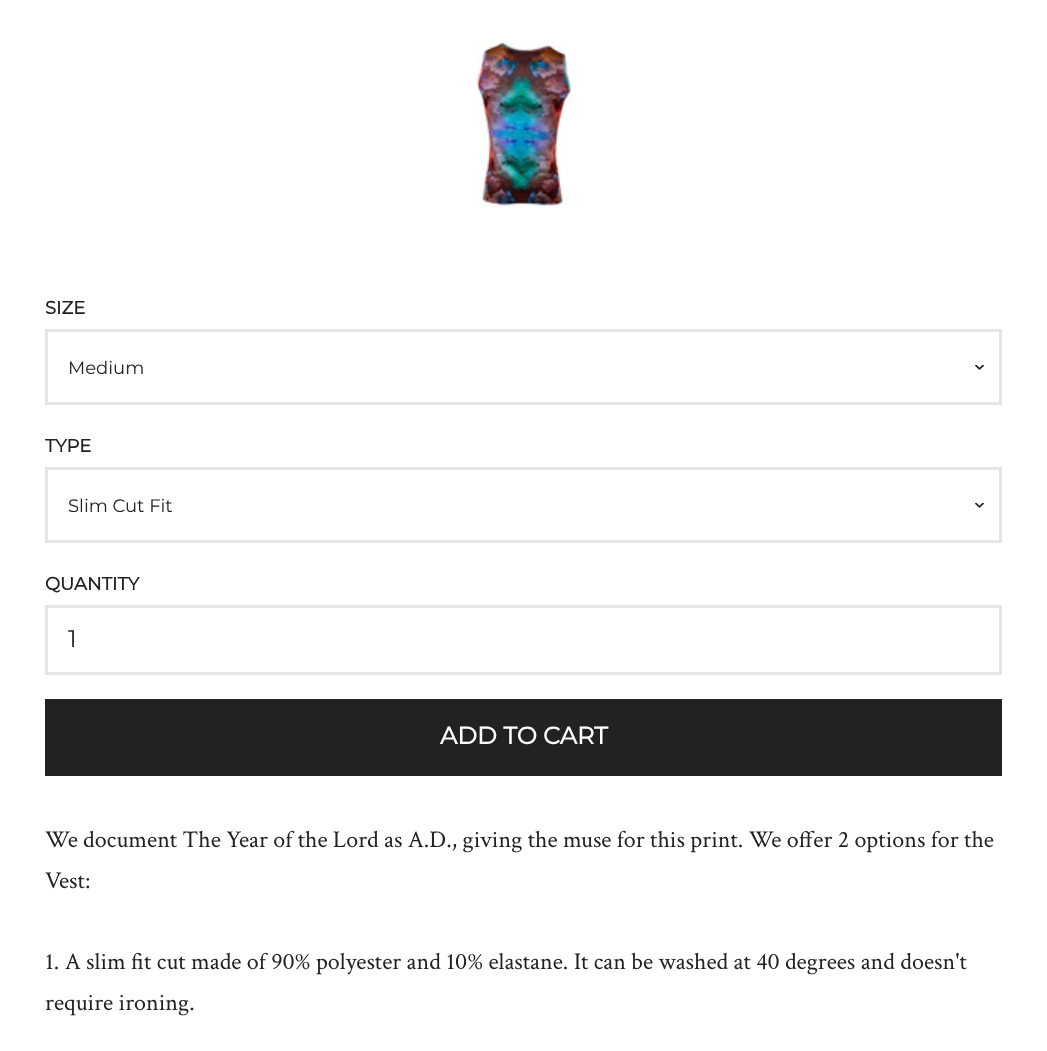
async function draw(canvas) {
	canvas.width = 1047;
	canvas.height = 1051;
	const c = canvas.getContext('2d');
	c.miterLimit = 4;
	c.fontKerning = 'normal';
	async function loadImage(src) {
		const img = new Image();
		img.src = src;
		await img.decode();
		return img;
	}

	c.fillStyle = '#fff';
	c.fillRect(0, 0, 1047, 1051);
	c.drawImage(await loadImage('img1.png'), 476, 40, 97, 168);
	c.font = 'bold 18px Montserrat';
	c.fillStyle = '#222';
	c.fillText('SIZE', 45, 314);
	c.drawImage(await loadImage('img2.png'), 975, 365, 9, 5);
	c.strokeStyle = '#e5e5e5';
	c.lineWidth = 3;
	c.strokeRect(46.5, 330.5, 954, 73);
	c.font = '100 18px Montserrat';
	c.fillText('Medium', 68, 374);
	c.font = 'bold 18px Montserrat';
	c.fillText('TYPE', 45, 452);
	c.drawImage(await loadImage('img2.png'), 975, 503, 9, 5);
	c.strokeRect(46.5, 468.5, 954, 73);
	c.font = '100 18px Montserrat';
	c.fillText('Slim Cut Fit', 68, 512);
	c.font = 'bold 18px Montserrat';
	c.fillText('QUANTITY', 45, 590);
	c.strokeRect(46.5, 606.5, 954, 67);
	c.font = '100 24px Montserrat';
	c.fillText('1', 68, 647);
	c.fillRect(45, 699, 957, 77);
	c.font = 'bold 24px Montserrat';
	c.fillStyle = '#fff';
	c.fillText('ADD TO CART', 440, 744);
	c.font = '24px Crimson Text';
	c.fillStyle = '#222';
	for (const [text, x, y] of [
		['We document The Year of the Lord as A.D., giving the muse for this print. We offer 2 options for the', 45, 847],
		['Vest:', 45, 888],
		['1. A slim fit cut made of 90% polyester and 10% elastane. It can be washed at 40 degrees and doesn\'t', 45, 969],
		['require ironing.', 45, 1010],
	]) {
		c.fillText(text, x, y);
	}
}

draw(document.querySelector('canvas'));
